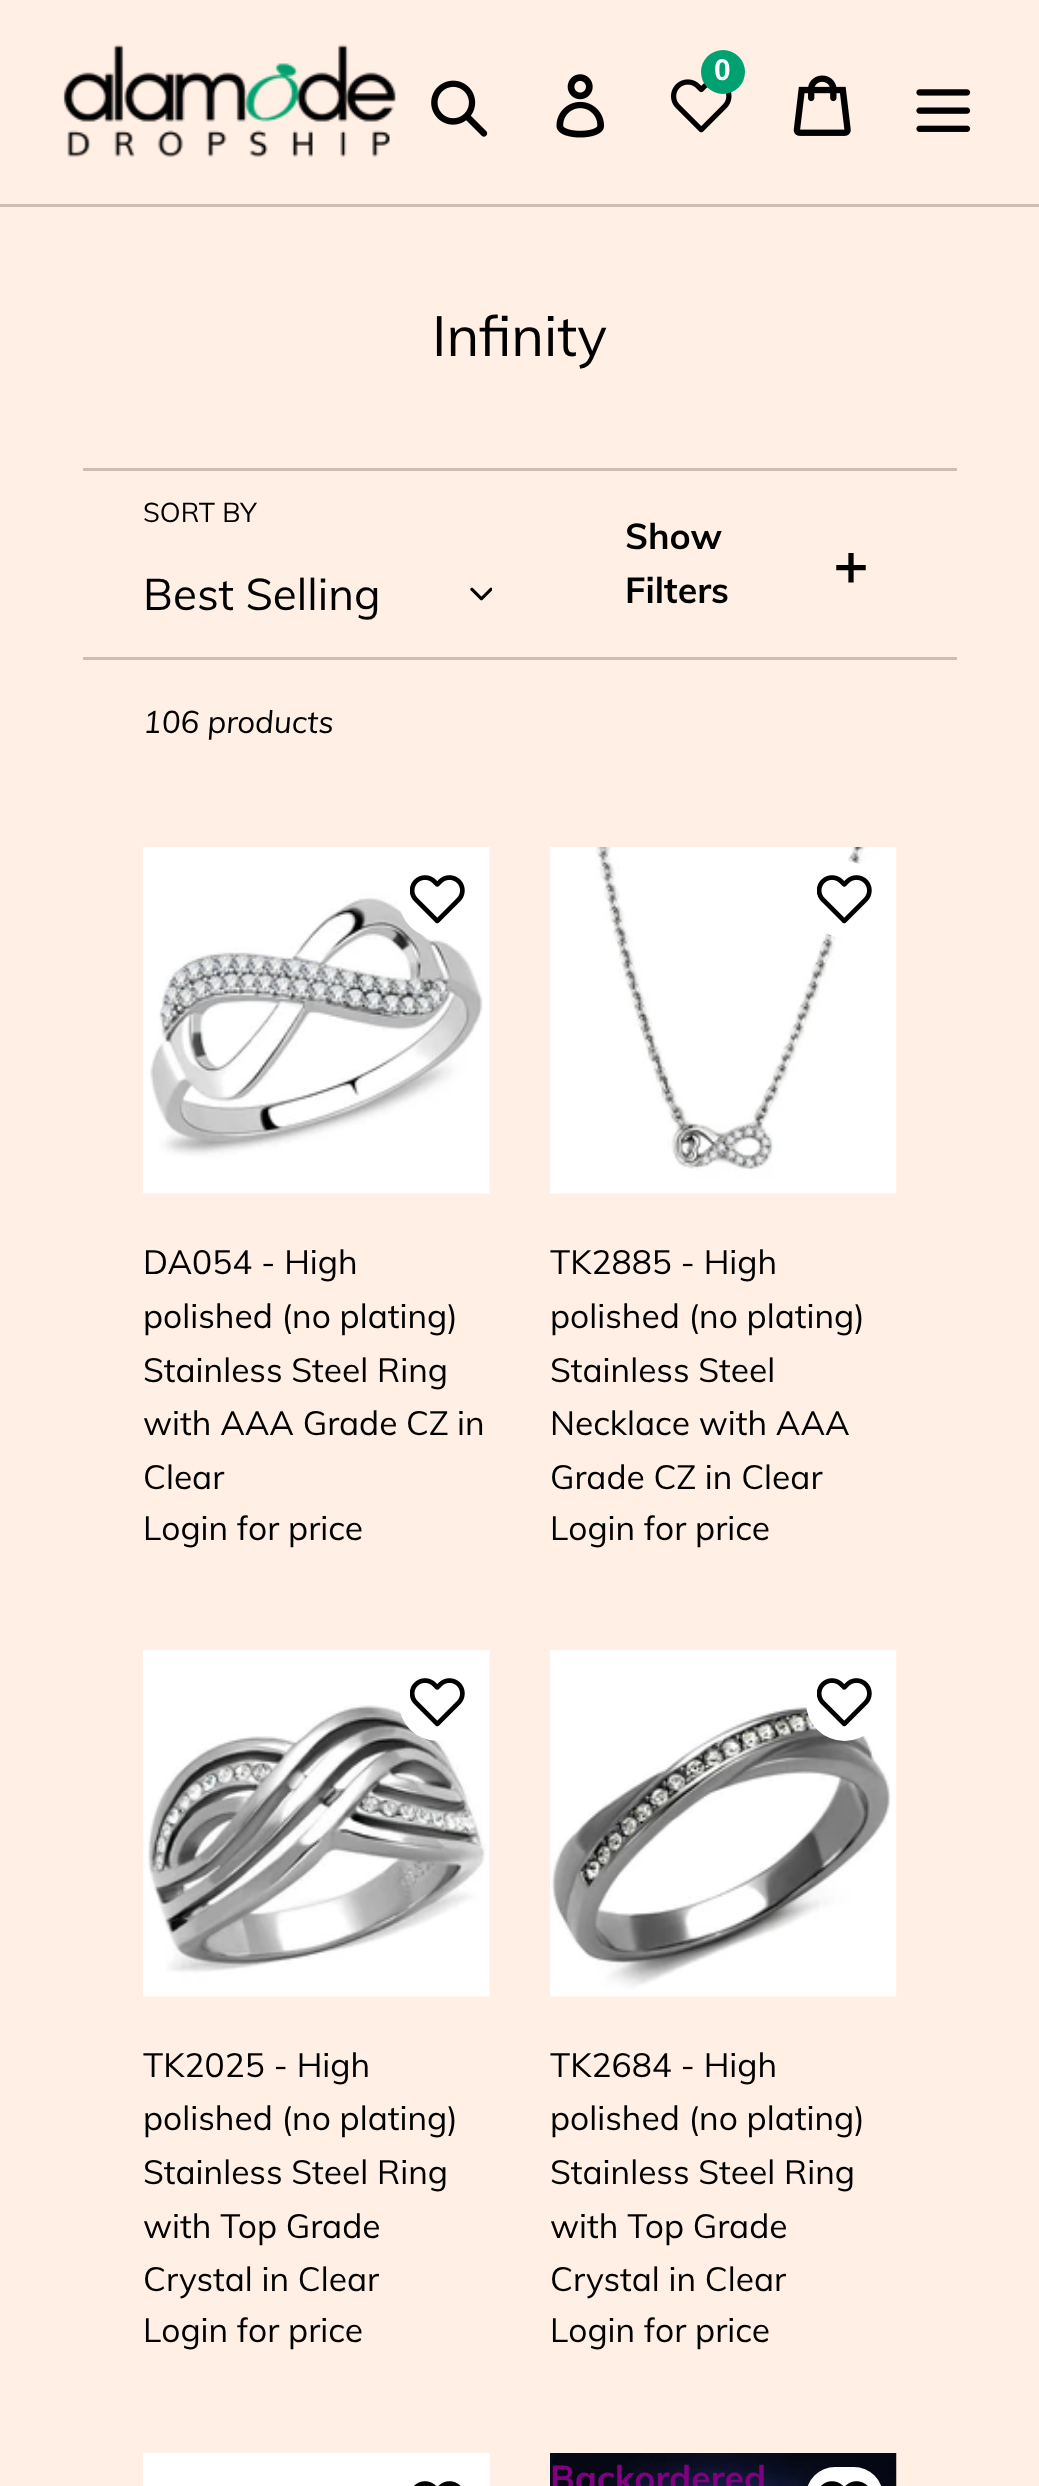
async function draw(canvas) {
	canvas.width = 1039;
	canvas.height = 2486;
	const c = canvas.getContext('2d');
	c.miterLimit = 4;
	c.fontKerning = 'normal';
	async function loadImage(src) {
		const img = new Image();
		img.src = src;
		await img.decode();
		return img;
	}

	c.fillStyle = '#ffefe5';
	c.fillRect(0, 0, 1039, 2486);
	c.fillStyle = '#ccbdb3';
	c.fillRect(0, 204, 1039, 3);
	c.drawImage(await loadImage('img1.png'), 63, 44, 333, 114);
	c.drawImage(await loadImage('img2.png'), 671, 79, 61, 54);
	c.fillStyle = '#00a170';
	c.beginPath();
	c.arc(723, 72, 22, 0, 2 * Math.PI);
	c.fill();
	c.font = 'bold 30px Liberation Sans';
	c.fillStyle = '#fff';
	c.fillText('0', 714, 80);
	c.drawImage(await loadImage('img3.png'), 431, 80, 57, 57);
	c.drawImage(await loadImage('img4.png'), 556, 74, 49, 64);
	c.drawImage(await loadImage('img5.png'), 793, 75, 58, 61);
	c.drawImage(await loadImage('img6.png'), 916, 89, 55, 43);
	c.font = '56px Muli';
	c.fillStyle = '#000';
	c.fillText('Infinity', 432, 356);
	c.fillStyle = '#ccbdb3';
	c.fillRect(83, 468, 874, 3);
	c.font = '27px Muli';
	c.fillStyle = '#000';
	c.fillText('SORT BY', 143, 522);
	c.font = '44px Muli';
	c.fillText('Best Selling', 143, 610);
	c.drawImage(await loadImage('img7.png'), 470, 587, 22, 14);
	c.font = 'bold 35.75px Muli';
	c.fillText('Show', 625, 549);
	c.font = 'bold 60px Muli';
	c.fillText('+', 833, 585);
	c.font = 'bold 35.75px Muli';
	c.fillText('Filters', 625, 603);
	c.fillStyle = '#ccbdb3';
	c.fillRect(83, 657, 874, 3);
	c.font = 'italic 31.25px Muli';
	c.fillStyle = '#000';
	c.fillText('106 products', 143, 733);
	c.drawImage(await loadImage('img8.png'), 143, 847, 347, 347);
	c.fillStyle = '#fff';
	c.beginPath();
	c.arc(437.5, 899.5, 38.5, 0, 2 * Math.PI);
	c.fill();
	c.drawImage(await loadImage('img9.png'), 410, 875, 55, 49);
	c.font = '33.5px Muli';
	c.fillStyle = '#000';
	for (const [text, x, y] of [
		['DA054 - High', 143, 1274],
		['polished (no plating)', 143, 1328],
		['Stainless Steel Ring', 143, 1382],
		['with AAA Grade CZ', 143, 1435],
		['in', 457, 1435],
		['Clear', 143, 1489],
		['Login for price', 143, 1540],
	]) {
		c.fillText(text, x, y);
	}
	c.drawImage(await loadImage('img10.png'), 550, 847, 347, 347);
	c.fillStyle = '#fff';
	c.beginPath();
	c.arc(844.5, 899.5, 38.5, 0, 2 * Math.PI);
	c.fill();
	c.drawImage(await loadImage('img9.png'), 817, 875, 55, 49);
	c.fillStyle = '#000';
	for (const [text, x, y] of [
		['TK2885 - High', 550, 1274],
		['polished (no plating)', 550, 1328],
		['Stainless Steel', 550, 1382],
		['Necklace with AAA', 550, 1435],
		['Grade CZ in Clear', 550, 1489],
		['Login for price', 550, 1540],
	]) {
		c.fillText(text, x, y);
	}
	c.drawImage(await loadImage('img11.png'), 143, 1650, 347, 347);
	c.fillStyle = '#fff';
	c.beginPath();
	c.arc(437.5, 1702.5, 38.5, 0, 2 * Math.PI);
	c.fill();
	c.drawImage(await loadImage('img9.png'), 410, 1678, 55, 49);
	c.fillStyle = '#000';
	for (const [text, x, y] of [
		['TK2025 - High', 143, 2077],
		['polished (no plating)', 143, 2130],
		['Stainless Steel Ring', 143, 2184],
		['with Top Grade', 143, 2238],
		['Crystal in Clear', 143, 2291],
		['Login for price', 143, 2342],
	]) {
		c.fillText(text, x, y);
	}
	c.drawImage(await loadImage('img12.png'), 550, 1650, 347, 347);
	c.fillStyle = '#fff';
	c.beginPath();
	c.arc(844.5, 1702.5, 38.5, 0, 2 * Math.PI);
	c.fill();
	c.drawImage(await loadImage('img9.png'), 817, 1678, 55, 49);
	c.fillStyle = '#000';
	for (const [text, x, y] of [
		['TK2684 - High', 550, 2077],
		['polished (no plating)', 550, 2130],
		['Stainless Steel Ring', 550, 2184],
		['with Top Grade', 550, 2238],
		['Crystal in Clear', 550, 2291],
		['Login for price', 550, 2342],
	]) {
		c.fillText(text, x, y);
	}
	c.fillStyle = '#fff';
	c.fillRect(143, 2453, 347, 33);
	c.drawImage(await loadImage('img13.png'), 414, 2481, 47, 5);
	c.drawImage(await loadImage('img14.png'), 550, 2453, 347, 33);
	c.font = 'bold 35.75px Muli';
	c.fillStyle = '#800080';
	c.fillText('Backordered', 550, 2491);
	c.fillStyle = '#fff';
	c.beginPath();
	c.roundRect(806, 2467, 77, 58, 38.5);
	c.fill();
	c.drawImage(await loadImage('img13.png'), 821, 2481, 47, 5);
}

draw(document.querySelector('canvas'));
